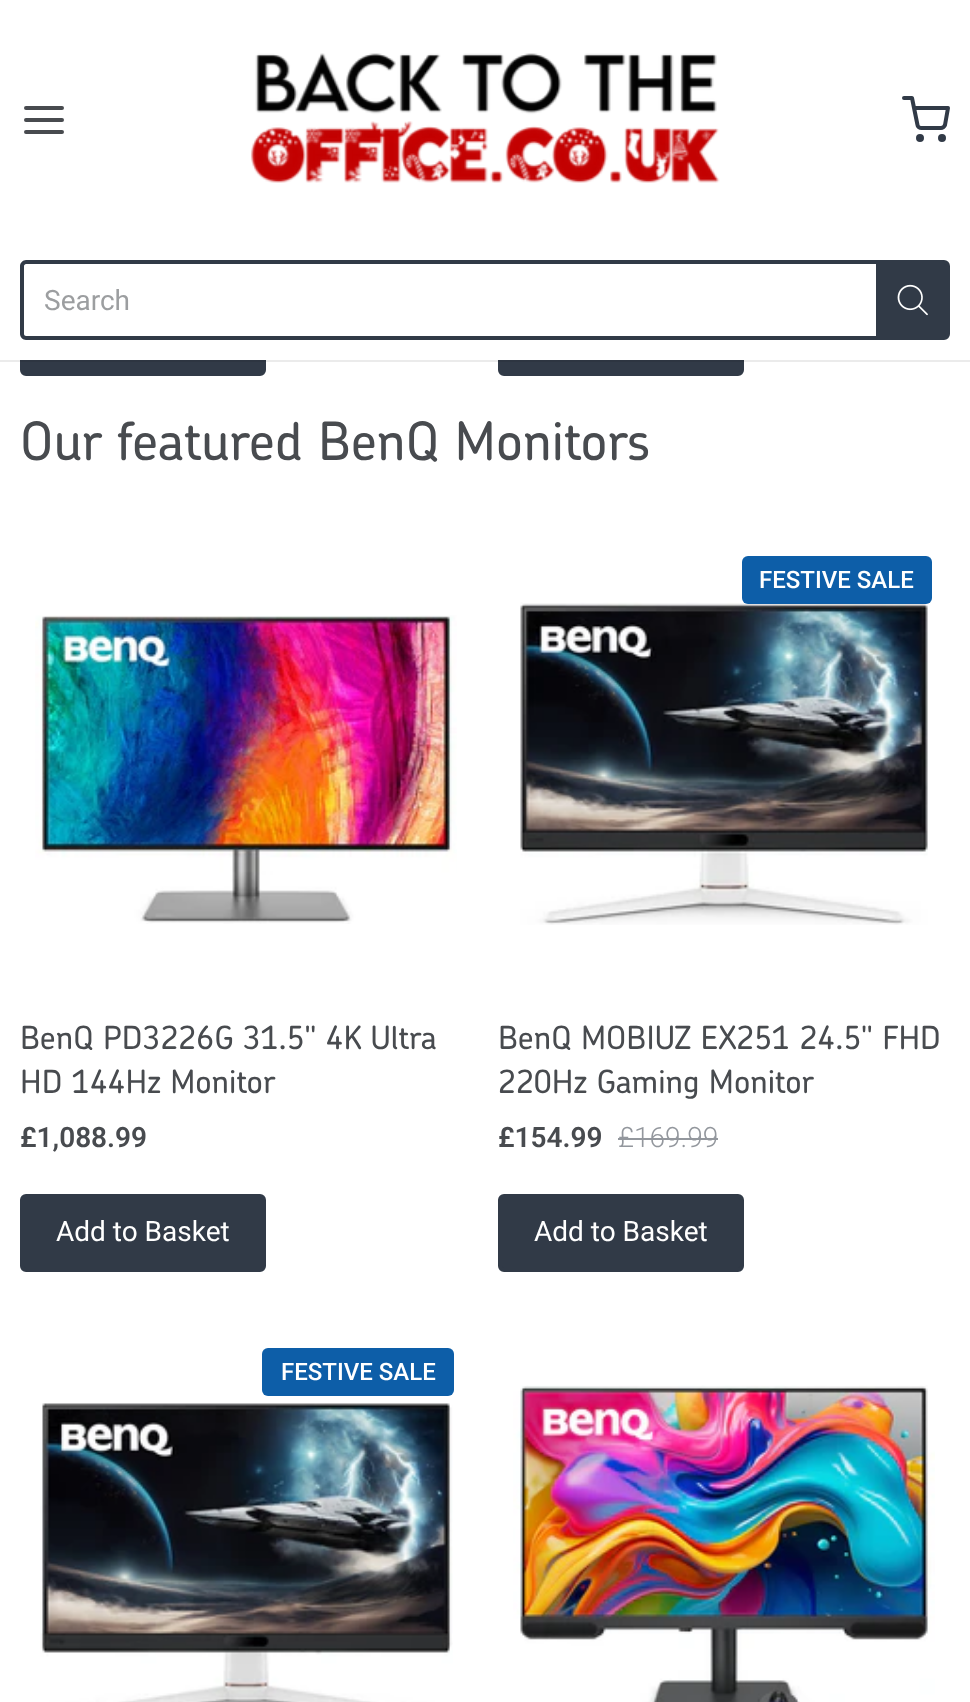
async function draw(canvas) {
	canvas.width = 970;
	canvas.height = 1702;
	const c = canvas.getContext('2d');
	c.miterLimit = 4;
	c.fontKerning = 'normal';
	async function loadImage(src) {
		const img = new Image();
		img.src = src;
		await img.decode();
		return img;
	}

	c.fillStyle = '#fff';
	c.fillRect(0, 0, 970, 1702);
	c.fillStyle = '#313a47';
	c.beginPath();
	c.roundRect(22, 298, 242, 76, 4);
	c.fill();
	c.strokeStyle = '#313a47';
	c.lineWidth = 4;
	c.stroke();
	c.beginPath();
	c.roundRect(500, 298, 242, 76, 4);
	c.fill();
	c.stroke();
	c.fillStyle = '#00000014';
	c.fillRect(0, 360, 970, 2);
	c.beginPath();
	c.moveTo(26, 120);
	c.lineTo(62, 120);
	c.moveTo(26, 108);
	c.lineTo(62, 108);
	c.moveTo(26, 132);
	c.lineTo(62, 132);
	c.strokeStyle = '#484b4f';
	c.lineCap = 'round';
	c.lineJoin = 'round';
	c.stroke();
	c.drawImage(await loadImage('img1.png'), 251, 53, 469, 130);
	c.beginPath();
	c.moveTo(904, 98);
	c.lineTo(912, 98);
	c.lineTo(917.5, 125);
	c.bezierCurveTo(917.5, 126.5, 919.5, 128, 921.5, 128);
	c.lineTo(941, 128);
	c.bezierCurveTo(942.5, 128, 944.5, 126.5, 945, 125);
	c.lineTo(948, 108);
	c.lineTo(914, 108);
	c.strokeStyle = '#313a47';
	c.stroke();
	c.beginPath();
	c.arc(920, 138, 2, 0, 2 * Math.PI);
	c.stroke();
	c.beginPath();
	c.arc(942, 138, 2, 0, 2 * Math.PI);
	c.stroke();
	c.fillStyle = '#fff';
	c.fillRect(20, 296, 724, 64);
	c.fillStyle = '#313a47';
	c.beginPath();
	c.moveTo(26, 260);
	c.lineTo(876, 260);
	c.lineTo(876, 340);
	c.lineTo(26, 340);
	c.bezierCurveTo(23, 340, 20, 337, 20, 334);
	c.lineTo(20, 266);
	c.bezierCurveTo(20, 263, 23, 260, 26, 260);
	c.closePath();
	c.moveTo(26, 264);
	c.lineTo(876, 264);
	c.lineTo(876, 336);
	c.lineTo(26, 336);
	c.bezierCurveTo(25, 336, 24, 335, 24, 334);
	c.lineTo(24, 266);
	c.bezierCurveTo(24, 265, 25, 264, 26, 264);
	c.closePath();
	c.fill('evenodd');
	c.font = '28px Roboto';
	c.fillStyle = '#9c9ea0';
	c.fillText('Search', 44, 310);
	c.fillStyle = '#313a47';
	c.beginPath();
	c.roundRect(878, 262, 70, 76, [0, 4, 4, 0]);
	c.fill();
	c.lineJoin = 'miter';
	c.stroke();
	c.drawImage(await loadImage('img2.png'), 897, 284, 31, 32);
	c.font = '500 52.75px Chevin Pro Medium';
	c.fillStyle = '#484b4f';
	c.fillText('Our featured BenQ Monitors', 20, 460);
	c.drawImage(await loadImage('img3.png'), 35, 615, 422, 309);
	c.font = '500 32px Chevin Pro Medium';
	c.fillText('BenQ PD3226G 31.5" 4K Ultra', 20, 1049);
	c.fillText('HD 144Hz Monitor', 20, 1093);
	c.font = '600 28px Roboto';
	c.fillText('£1,088.99', 20, 1147);
	c.fillStyle = '#313a47';
	c.beginPath();
	c.roundRect(22, 1196, 242, 74, 4);
	c.fill();
	c.stroke();
	c.font = '28px Roboto';
	c.fillStyle = '#fff';
	c.fillText('Add to Basket', 56, 1241);
	c.drawImage(await loadImage('img4.png'), 520, 602, 408, 323);
	c.fillStyle = '#0d5ea8';
	c.beginPath();
	c.roundRect(742, 556, 190, 48, 6);
	c.fill();
	c.font = '500 24px Roboto';
	c.fillStyle = '#fff';
	c.fillText('FESTIVE SALE', 759, 588);
	c.font = '500 32px Chevin Pro Medium';
	c.fillStyle = '#484b4f';
	c.fillText('BenQ MOBIUZ EX251 24.5" FHD', 498, 1049);
	c.fillText('220Hz Gaming Monitor', 498, 1093);
	c.font = '600 28px Roboto';
	c.fillText('£154.99', 498, 1147);
	c.font = '300 28px Roboto';
	c.fillStyle = '#93979d';
	c.fillText('£169.99', 618, 1147);
	c.fillRect(618, 1138, 100, 2);
	c.fillStyle = '#313a47';
	c.beginPath();
	c.roundRect(500, 1196, 242, 74, 4);
	c.fill();
	c.stroke();
	c.font = '28px Roboto';
	c.fillStyle = '#fff';
	c.fillText('Add to Basket', 534, 1241);
	c.fillStyle = '#0d5ea8';
	c.beginPath();
	c.roundRect(262, 1348, 192, 48, 6);
	c.fill();
	c.font = '500 24px Roboto';
	c.fillStyle = '#fff';
	c.fillText('FESTIVE SALE', 281, 1380);
	c.drawImage(await loadImage('img5.png'), 40, 1403, 413, 299);
	c.drawImage(await loadImage('img6.png'), 513, 1385, 422, 317);
}

draw(document.querySelector('canvas'));
